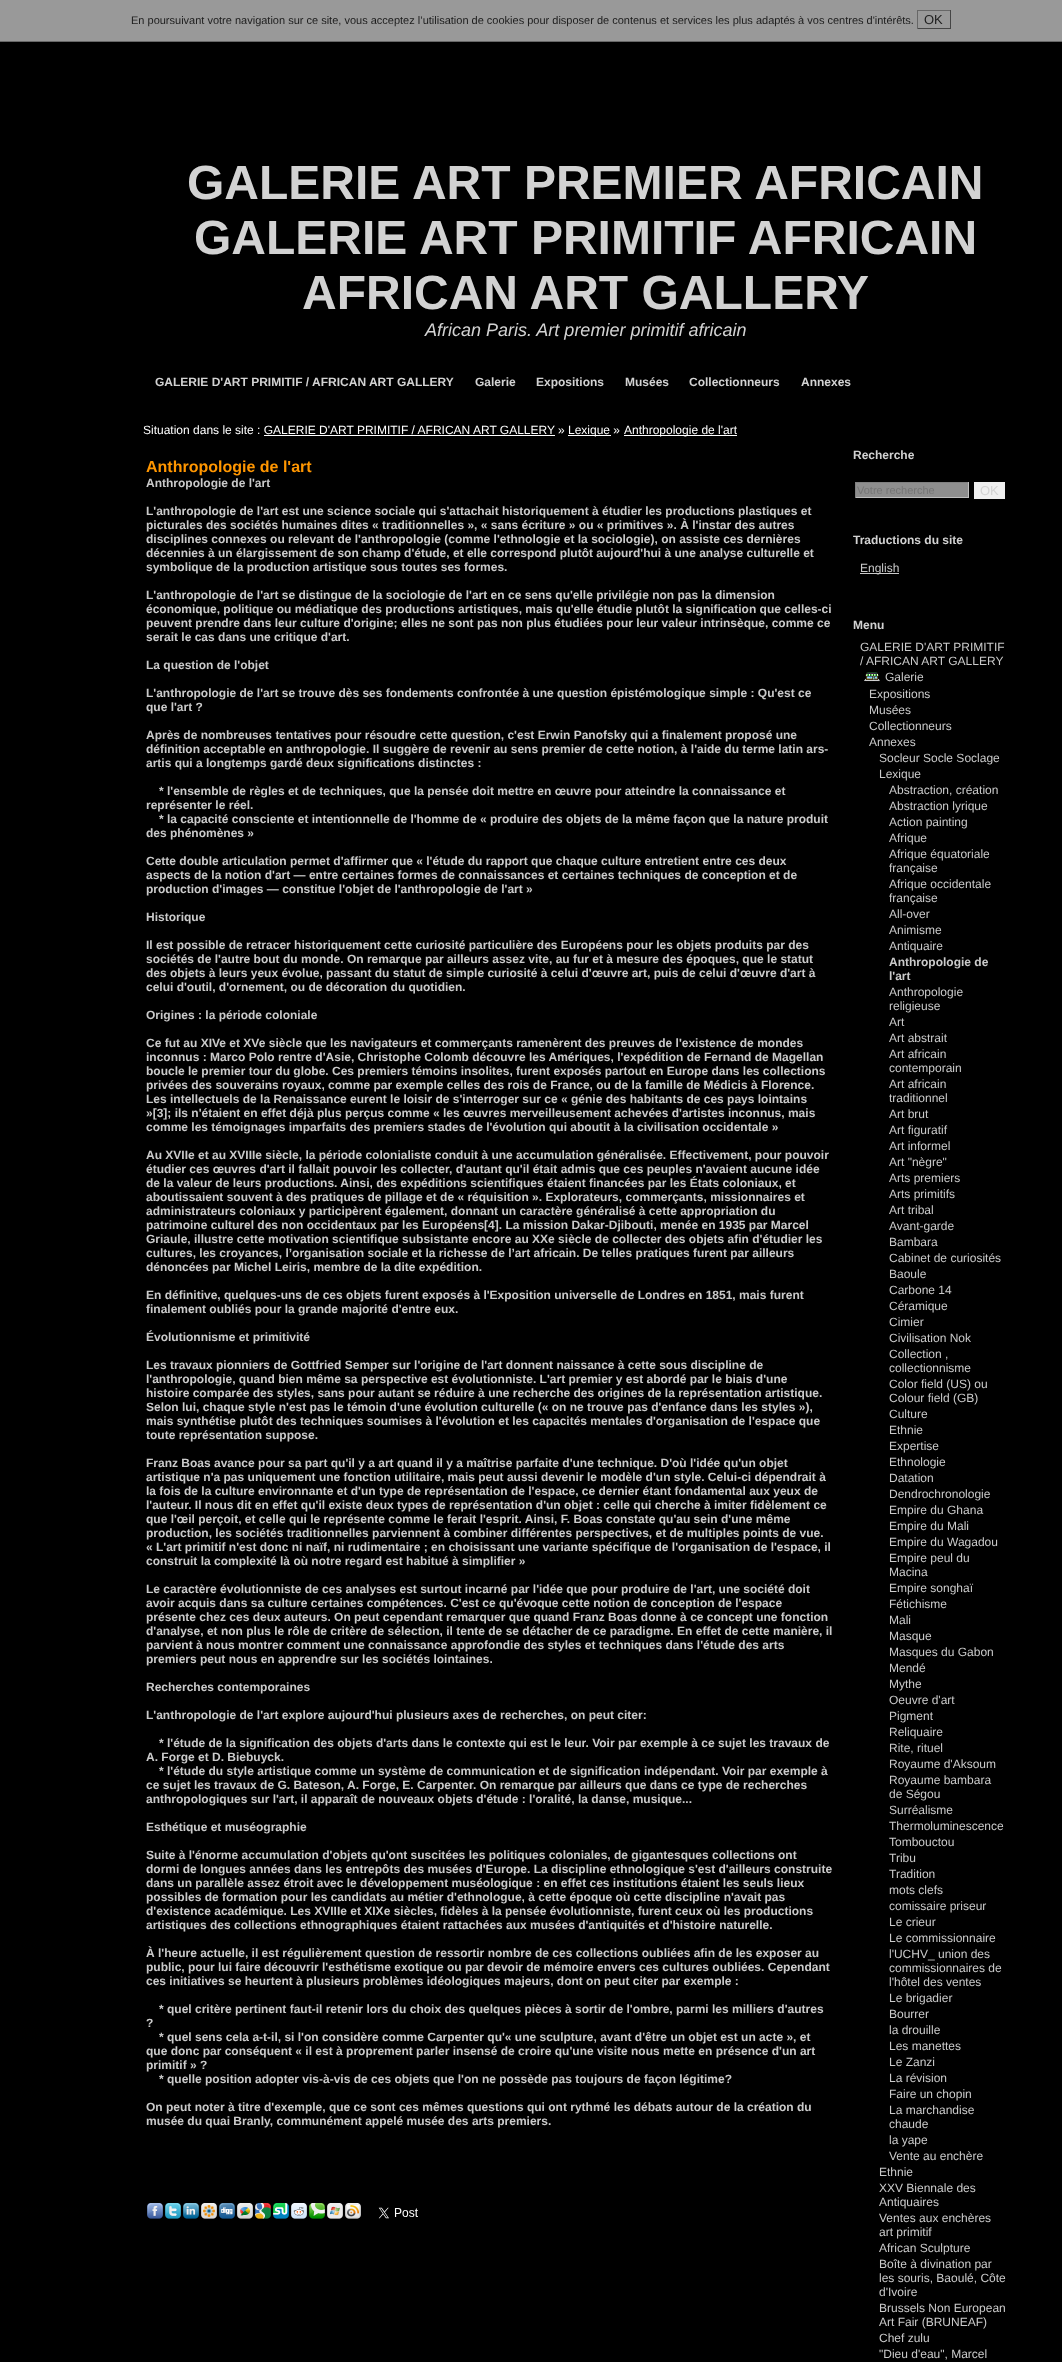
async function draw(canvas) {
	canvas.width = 1062;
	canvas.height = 2362;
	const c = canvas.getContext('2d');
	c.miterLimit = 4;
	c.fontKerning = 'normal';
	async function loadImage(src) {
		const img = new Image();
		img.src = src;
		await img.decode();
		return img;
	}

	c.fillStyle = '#000';
	c.fillRect(0, 0, 1062, 2362);
	c.fillStyle = '#999';
	c.fillRect(0, 0, 1062, 41);
	c.fillStyle = '#676767';
	c.fillRect(0, 41, 1062, 1);
	c.font = '11px Liberation Sans';
	c.fillStyle = '#1d1d1d';
	c.fillText('En poursuivant votre navigation sur ce site, vous acceptez l’utilisation de cookies pour disposer de contenus et services les plus adaptés à vos centres d\'intérêts.', 131, 24);
	for (const [x, y, w, h, color] of [
		[917, 10, 34, 1, '#676767'],
		[950, 10, 1, 19, '#454545'],
		[917, 28, 34, 1, '#454545'],
		[917, 10, 1, 19, '#676767'],
	]) {
		c.fillStyle = color;
		c.fillRect(x, y, w, h);
	}
	c.font = '13px Liberation Sans';
	c.fillStyle = '#1d1d1d';
	c.fillText('OK', 924, 24);
	c.font = 'bold 48px Liberation Sans';
	c.fillStyle = '#d2d2d2';
	for (const [text, x, y] of [
		['GALERIE ART PREMIER AFRICAIN', 187, 199],
		['GALERIE ART PRIMITIF AFRICAIN', 194, 254],
		['AFRICAN ART GALLERY', 302, 309],
	]) {
		c.fillText(text, x, y);
	}
	c.font = 'italic 18px Liberation Sans';
	c.fillText('African Paris. Art premier primitif africain', 425, 336);
	c.font = 'bold 12px Liberation Sans';
	for (const [text, x, y] of [
		['GALERIE D\'ART PRIMITIF / AFRICAN ART GALLERY', 155, 386],
		['Galerie', 475, 386],
		['Expositions', 536, 386],
		['Musées', 625, 386],
		['Collectionneurs', 689, 386],
		['Annexes', 801, 386],
	]) {
		c.fillText(text, x, y);
	}
	c.font = '12px Liberation Sans';
	c.fillStyle = '#fff';
	c.fillText('Situation dans le site : GALERIE D\'ART PRIMITIF / AFRICAN ART GALLERY »', 143, 434);
	c.fillRect(568, 435, 43, 1);
	c.fillText('Lexique »', 568, 434);
	c.fillRect(624, 435, 113, 1);
	c.fillText('Anthropologie de l\'art', 624, 434);
	c.fillRect(264, 435, 291, 1);
	c.font = 'bold 16px Liberation Sans';
	c.fillStyle = '#ff9600';
	c.fillText('Anthropologie de l\'art', 146, 472);
	c.font = 'bold 12px Liberation Sans';
	c.fillStyle = '#cacaca';
	for (const [text, x, y] of [
		['Anthropologie de l\'art', 146, 487],
		['L\'anthropologie de l\'art est une science sociale qui s\'attachait historiquement à étudier les productions plastiques et', 146, 515],
		['picturales des sociétés humaines dites « traditionnelles », « sans écriture » ou « primitives ». À l\'instar des autres', 146, 529],
		['disciplines connexes ou relevant de l\'anthropologie (comme l\'ethnologie et la sociologie), on assiste ces dernières', 146, 543],
		['décennies à un élargissement de son champ d\'étude, et elle correspond plutôt aujourd\'hui à une analyse culturelle et', 146, 557],
		['symbolique de la production artistique sous toutes ses formes.', 146, 571],
		['L\'anthropologie de l\'art se distingue de la sociologie de l\'art en ce sens qu\'elle privilégie non pas la dimension', 146, 599],
		['économique, politique ou médiatique des productions artistiques, mais qu\'elle étudie plutôt la signification que celles-ci', 146, 613],
		['peuvent prendre dans leur culture d\'origine; elles ne sont pas non plus étudiées pour leur valeur intrinsèque, comme ce', 146, 627],
		['serait le cas dans une critique d\'art.', 146, 641],
		['La question de l\'objet', 146, 669],
		['L\'anthropologie de l\'art se trouve dès ses fondements confrontée à une question épistémologique simple : Qu\'est ce', 146, 697],
		['que l\'art ?', 146, 711],
		['Après de nombreuses tentatives pour résoudre cette question, c\'est Erwin Panofsky qui a finalement proposé une', 146, 739],
		['définition acceptable en anthropologie. Il suggère de revenir au sens premier de cette notion, à l\'aide du terme latin ars-', 146, 753],
		['artis qui a longtemps gardé deux significations distinctes :', 146, 767],
		['* l\'ensemble de règles et de techniques, que la pensée doit mettre en œuvre pour atteindre la connaissance et', 159, 795],
		['représenter le réel.', 146, 809],
		['* la capacité consciente et intentionnelle de l\'homme de « produire des objets de la même façon que la nature produit', 159, 823],
		['des phénomènes »', 146, 837],
		['Cette double articulation permet d\'affirmer que « l\'étude du rapport que chaque culture entretient entre ces deux', 146, 865],
		['aspects de la notion d\'art — entre certaines formes de connaissances et certaines techniques de conception et de', 146, 879],
		['production d\'images — constitue l\'objet de l\'anthropologie de l\'art »', 146, 893],
		['Historique', 146, 921],
		['Il est possible de retracer historiquement cette curiosité particulière des Européens pour les objets produits par des', 146, 949],
		['sociétés de l\'autre bout du monde. On remarque par ailleurs assez vite, au fur et à mesure des époques, que le statut', 146, 963],
		['des objets à leurs yeux évolue, passant du statut de simple curiosité à celui d\'œuvre art, puis de celui d\'œuvre d\'art à', 146, 977],
		['celui d\'outil, d\'ornement, ou de décoration du quotidien.', 146, 991],
		['Origines : la période coloniale', 146, 1019],
		['Ce fut au XIVe et XVe siècle que les navigateurs et commerçants ramenèrent des preuves de l\'existence de mondes', 146, 1047],
		['inconnus : Marco Polo rentre d\'Asie, Christophe Colomb découvre les Amériques, l\'expédition de Fernand de Magellan', 146, 1061],
		['boucle le premier tour du globe. Ces premiers témoins insolites, furent exposés partout en Europe dans les collections', 146, 1075],
		['privées des souverains royaux, comme par exemple celles des rois de France, ou de la famille de Médicis à Florence.', 146, 1089],
		['Les intellectuels de la Renaissance eurent le loisir de s\'interroger sur ce « génie des habitants de ces pays lointains', 146, 1103],
		['»[3]; ils n\'étaient en effet déjà plus perçus comme « les œuvres merveilleusement achevées d\'artistes inconnus, mais', 146, 1117],
		['comme les témoignages imparfaits des premiers stades de l\'évolution qui aboutit à la civilisation occidentale »', 146, 1131],
		['Au XVIIe et au XVIIIe siècle, la période colonialiste conduit à une accumulation généralisée. Effectivement, pour pouvoir', 146, 1159],
		['étudier ces œuvres d\'art il fallait pouvoir les collecter, d\'autant qu\'il était admis que ces peuples n\'avaient aucune idée', 146, 1173],
		['de la valeur de leurs productions. Ainsi, des expéditions scientifiques étaient financées par les États coloniaux, et', 146, 1187],
		['aboutissaient souvent à des pratiques de pillage et de « réquisition ». Explorateurs, commerçants, missionnaires et', 146, 1201],
		['administrateurs coloniaux y participèrent également, donnant un caractère généralisé à cette appropriation du', 146, 1215],
		['patrimoine culturel des non occidentaux par les Européens[4]. La mission Dakar-Djibouti, menée en 1935 par Marcel', 146, 1229],
		['Griaule, illustre cette motivation scientifique subsistante encore au XXe siècle de collecter des objets afin d\'étudier les', 146, 1243],
		['cultures, les croyances, l’organisation sociale et la richesse de l’art africain. De telles pratiques furent par ailleurs', 146, 1257],
		['dénoncées par Michel Leiris, membre de la dite expédition.', 146, 1271],
		['En définitive, quelques-uns de ces objets furent exposés à l\'Exposition universelle de Londres en 1851, mais furent', 146, 1299],
		['finalement oubliés pour la grande majorité d\'entre eux.', 146, 1313],
		['Évolutionnisme et primitivité', 146, 1341],
		['Les travaux pionniers de Gottfried Semper sur l\'origine de l\'art donnent naissance à cette sous discipline de', 146, 1369],
		['l\'anthropologie, quand bien même sa perspective est évolutionniste. L\'art premier y est abordé par le biais d\'une', 146, 1383],
		['histoire comparée des styles, sans pour autant se réduire à une recherche des origines de la représentation artistique.', 146, 1397],
		['Selon lui, chaque style n\'est pas le témoin d\'une évolution culturelle (« on ne trouve pas d\'enfance dans les styles »),', 146, 1411],
		['mais synthétise plutôt des techniques soumises à l\'évolution et les capacités mentales d\'organisation de l\'espace que', 146, 1425],
		['toute représentation suppose.', 146, 1439],
		['Franz Boas avance pour sa part qu\'il y a art quand il y a maîtrise parfaite d\'une technique. D\'où l\'idée qu\'un objet', 146, 1467],
		['artistique n\'a pas uniquement une fonction utilitaire, mais peut aussi devenir le modèle d\'un style. Celui-ci dépendrait à', 146, 1481],
		['la fois de la culture environnante et d\'un type de représentation de l\'espace, ce dernier étant fondamental aux yeux de', 146, 1495],
		['l\'auteur. Il nous dit en effet qu\'il existe deux types de représentation d\'un objet : celle qui cherche à imiter fidèlement ce', 146, 1509],
		['que l\'œil perçoit, et celle qui le représente comme le ferait l\'esprit. Ainsi, F. Boas constate qu\'au sein d\'une même', 146, 1523],
		['production, les sociétés traditionnelles parviennent à combiner différentes perspectives, et de multiples points de vue.', 146, 1537],
		['« L\'art primitif n\'est donc ni naïf, ni rudimentaire ; en choisissant une variante spécifique de l\'organisation de l\'espace, il', 146, 1551],
		['construit la complexité là où notre regard est habitué à simplifier »', 146, 1565],
		['Le caractère évolutionniste de ces analyses est surtout incarné par l\'idée que pour produire de l\'art, une société doit', 146, 1593],
		['avoir acquis dans sa culture certaines compétences. C\'est ce qu\'évoque cette notion de conception de l\'espace', 146, 1607],
		['présente chez ces deux auteurs. On peut cependant remarquer que quand Franz Boas donne à ce concept une fonction', 146, 1621],
		['d\'analyse, et non plus le rôle de critère de sélection, il tente de se détacher de ce paradigme. En effet de cette manière, il', 146, 1635],
		['parvient à nous montrer comment une connaissance approfondie des styles et techniques dans l\'étude des arts', 146, 1649],
		['premiers peut nous en apprendre sur les sociétés lointaines.', 146, 1663],
		['Recherches contemporaines', 146, 1691],
		['L\'anthropologie de l\'art explore aujourd\'hui plusieurs axes de recherches, on peut citer:', 146, 1719],
		['* l\'étude de la signification des objets d\'arts dans le contexte qui est le leur. Voir par exemple à ce sujet les travaux de', 159, 1747],
		['A. Forge et D. Biebuyck.', 146, 1761],
		['* l\'étude du style artistique comme un système de communication et de signification indépendant. Voir par exemple à', 159, 1775],
		['ce sujet les travaux de G. Bateson, A. Forge, E. Carpenter. On remarque par ailleurs que dans ce type de recherches', 146, 1789],
		['anthropologiques sur l\'art, il apparaît de nouveaux objets d\'étude : l\'oralité, la danse, musique...', 146, 1803],
		['Esthétique et muséographie', 146, 1831],
		['Suite à l\'énorme accumulation d\'objets qu\'ont suscitées les politiques coloniales, de gigantesques collections ont', 146, 1859],
		['dormi de longues années dans les entrepôts des musées d\'Europe. La discipline ethnologique s\'est d\'ailleurs construite', 146, 1873],
		['dans un parallèle assez étroit avec le développement muséologique : en effet ces institutions étaient les seuls lieux', 146, 1887],
		['possibles de formation pour les candidats au métier d\'ethnologue, à cette époque où cette discipline n\'avait pas', 146, 1901],
		['d\'existence académique. Les XVIIIe et XIXe siècles, fidèles à la pensée évolutionniste, furent ceux où les productions', 146, 1915],
		['artistiques des collections ethnographiques étaient rattachées aux musées d\'antiquités et d\'histoire naturelle.', 146, 1929],
		['À l\'heure actuelle, il est régulièrement question de ressortir nombre de ces collections oubliées afin de les exposer au', 146, 1957],
		['public, pour lui faire découvrir l\'esthétisme exotique ou par devoir de mémoire envers ces cultures oubliées. Cependant', 146, 1971],
		['ces initiatives se heurtent à plusieurs problèmes idéologiques majeurs, dont on peut citer par exemple :', 146, 1985],
		['* quel critère pertinent faut-il retenir lors du choix des quelques pièces à sortir de l\'ombre, parmi les milliers d\'autres', 159, 2013],
		['?', 146, 2027],
		['* quel sens cela a-t-il, si l\'on considère comme Carpenter qu\'« une sculpture, avant d\'être un objet est un acte », et', 159, 2041],
		['que donc par conséquent « il est à proprement parler insensé de croire qu\'une visite nous mette en présence d\'un art', 146, 2055],
		['primitif » ?', 146, 2069],
		['* quelle position adopter vis-à-vis de ces objets que l\'on ne possède pas toujours de façon légitime?', 159, 2083],
		['On peut noter à titre d\'exemple, que ce sont ces mêmes questions qui ont rythmé les débats autour de la création du', 146, 2111],
		['musée du quai Branly, communément appelé musée des arts premiers.', 146, 2125],
	]) {
		c.fillText(text, x, y);
	}
	c.drawImage(await loadImage('img1.png'), 147, 2203, 16, 16);
	c.drawImage(await loadImage('img2.png'), 165, 2203, 16, 16);
	c.drawImage(await loadImage('img3.png'), 183, 2203, 16, 16);
	c.drawImage(await loadImage('img4.png'), 201, 2203, 16, 16);
	c.drawImage(await loadImage('img5.png'), 219, 2203, 16, 16);
	c.drawImage(await loadImage('img6.png'), 237, 2203, 16, 16);
	c.drawImage(await loadImage('img7.png'), 255, 2203, 16, 16);
	c.drawImage(await loadImage('img8.png'), 273, 2203, 16, 16);
	c.drawImage(await loadImage('img9.png'), 291, 2203, 16, 16);
	c.drawImage(await loadImage('img10.png'), 309, 2203, 16, 16);
	c.drawImage(await loadImage('img11.png'), 327, 2203, 16, 16);
	c.drawImage(await loadImage('img12.png'), 345, 2203, 16, 16);
	c.drawImage(await loadImage('img13.png'), 378, 2207, 40, 12);
	c.fillStyle = '#d2d2d2';
	c.fillText('Recherche', 853, 459);
	for (const [x, y, w, h, color] of [
		[856, 483, 112, 14, '#8e8e8e'],
		[855, 482, 114, 1, '#808080'],
		[968, 482, 1, 16, '#c0c0c0'],
		[855, 497, 114, 1, '#c0c0c0'],
		[855, 482, 1, 16, '#808080'],
	]) {
		c.fillStyle = color;
		c.fillRect(x, y, w, h);
	}
	c.font = '11px Liberation Sans';
	c.fillStyle = '#757575';
	c.fillText('Votre recherche', 857, 494);
	c.fillStyle = '#efefef';
	c.fillRect(974, 482, 31, 17);
	c.font = '13px Liberation Sans';
	c.fillStyle = '#d2d2d2';
	c.fillText('OK', 980, 495);
	c.font = 'bold 12px Liberation Sans';
	c.fillText('Traductions du site', 853, 544);
	c.fillStyle = '#cacaca';
	c.fillRect(860, 573, 39, 1);
	c.font = '12px Liberation Sans';
	c.fillText('English', 860, 572);
	c.font = 'bold 12px Liberation Sans';
	c.fillStyle = '#d2d2d2';
	c.fillText('Menu', 853, 629);
	c.font = '12px Liberation Sans';
	c.fillStyle = '#cacaca';
	c.fillText('GALERIE D\'ART PRIMITIF', 860, 651);
	c.fillText('/ AFRICAN ART GALLERY', 860, 665);
	c.drawImage(await loadImage('img14.png'), 864, 672, 16, 10);
	for (const [text, x, y] of [
		['Galerie', 885, 681],
		['Expositions', 869, 698],
		['Musées', 869, 714],
		['Collectionneurs', 869, 730],
		['Annexes', 869, 746],
		['Socleur Socle Soclage', 879, 762],
		['Lexique', 879, 778],
		['Abstraction, création', 889, 794],
		['Abstraction lyrique', 889, 810],
		['Action painting', 889, 826],
		['Afrique', 889, 842],
		['Afrique équatoriale', 889, 858],
		['française', 889, 872],
		['Afrique occidentale', 889, 888],
		['française', 889, 902],
		['All-over', 889, 918],
		['Animisme', 889, 934],
		['Antiquaire', 889, 950],
	]) {
		c.fillText(text, x, y);
	}
	c.font = 'bold 12px Liberation Sans';
	c.fillText('Anthropologie de', 889, 966);
	c.fillText('l\'art', 889, 980);
	c.font = '12px Liberation Sans';
	for (const [text, x, y] of [
		['Anthropologie', 889, 996],
		['religieuse', 889, 1010],
		['Art', 889, 1026],
		['Art abstrait', 889, 1042],
		['Art africain', 889, 1058],
		['contemporain', 889, 1072],
		['Art africain', 889, 1088],
		['traditionnel', 889, 1102],
		['Art brut', 889, 1118],
		['Art figuratif', 889, 1134],
		['Art informel', 889, 1150],
		['Art "nègre"', 889, 1166],
		['Arts premiers', 889, 1182],
		['Arts primitifs', 889, 1198],
		['Art tribal', 889, 1214],
		['Avant-garde', 889, 1230],
		['Bambara', 889, 1246],
		['Cabinet de curiosités', 889, 1262],
		['Baoule', 889, 1278],
		['Carbone 14', 889, 1294],
		['Céramique', 889, 1310],
		['Cimier', 889, 1326],
		['Civilisation Nok', 889, 1342],
		['Collection ,', 889, 1358],
		['collectionnisme', 889, 1372],
		['Color field (US) ou', 889, 1388],
		['Colour field (GB)', 889, 1402],
		['Culture', 889, 1418],
		['Ethnie', 889, 1434],
		['Expertise', 889, 1450],
		['Ethnologie', 889, 1466],
		['Datation', 889, 1482],
		['Dendrochronologie', 889, 1498],
		['Empire du Ghana', 889, 1514],
		['Empire du Mali', 889, 1530],
		['Empire du Wagadou', 889, 1546],
		['Empire peul du', 889, 1562],
		['Macina', 889, 1576],
		['Empire songhaï', 889, 1592],
		['Fétichisme', 889, 1608],
		['Mali', 889, 1624],
		['Masque', 889, 1640],
		['Masques du Gabon', 889, 1656],
		['Mendé', 889, 1672],
		['Mythe', 889, 1688],
		['Oeuvre d\'art', 889, 1704],
		['Pigment', 889, 1720],
		['Reliquaire', 889, 1736],
		['Rite, rituel', 889, 1752],
		['Royaume d\'Aksoum', 889, 1768],
		['Royaume bambara', 889, 1784],
		['de Ségou', 889, 1798],
		['Surréalisme', 889, 1814],
		['Thermoluminescence', 889, 1830],
		['Tombouctou', 889, 1846],
		['Tribu', 889, 1862],
		['Tradition', 889, 1878],
		['mots clefs', 889, 1894],
		['comissaire priseur', 889, 1910],
		['Le crieur', 889, 1926],
		['Le commissionnaire', 889, 1942],
		['l\'UCHV_ union des', 889, 1958],
		['commissionnaires de', 889, 1972],
		['l\'hôtel des ventes', 889, 1986],
		['Le brigadier', 889, 2002],
		['Bourrer', 889, 2018],
		['la drouille', 889, 2034],
		['Les manettes', 889, 2050],
		['Le Zanzi', 889, 2066],
		['La révision', 889, 2082],
		['Faire un chopin', 889, 2098],
		['La marchandise', 889, 2114],
		['chaude', 889, 2128],
		['la yape', 889, 2144],
		['Vente au enchère', 889, 2160],
		['Ethnie', 879, 2176],
		['XXV Biennale des', 879, 2192],
		['Antiquaires', 879, 2206],
		['Ventes aux enchères', 879, 2222],
		['art primitif', 879, 2236],
		['African Sculpture', 879, 2252],
		['Boîte à divination par', 879, 2268],
		['les souris, Baoulé, Côte', 879, 2282],
		['d\'Ivoire', 879, 2296],
		['Brussels Non European', 879, 2312],
		['Art Fair (BRUNEAF)', 879, 2326],
		['Chef zulu', 879, 2342],
		['"Dieu d\'eau", Marcel', 879, 2358],
	]) {
		c.fillText(text, x, y);
	}
}

draw(document.querySelector('canvas'));
